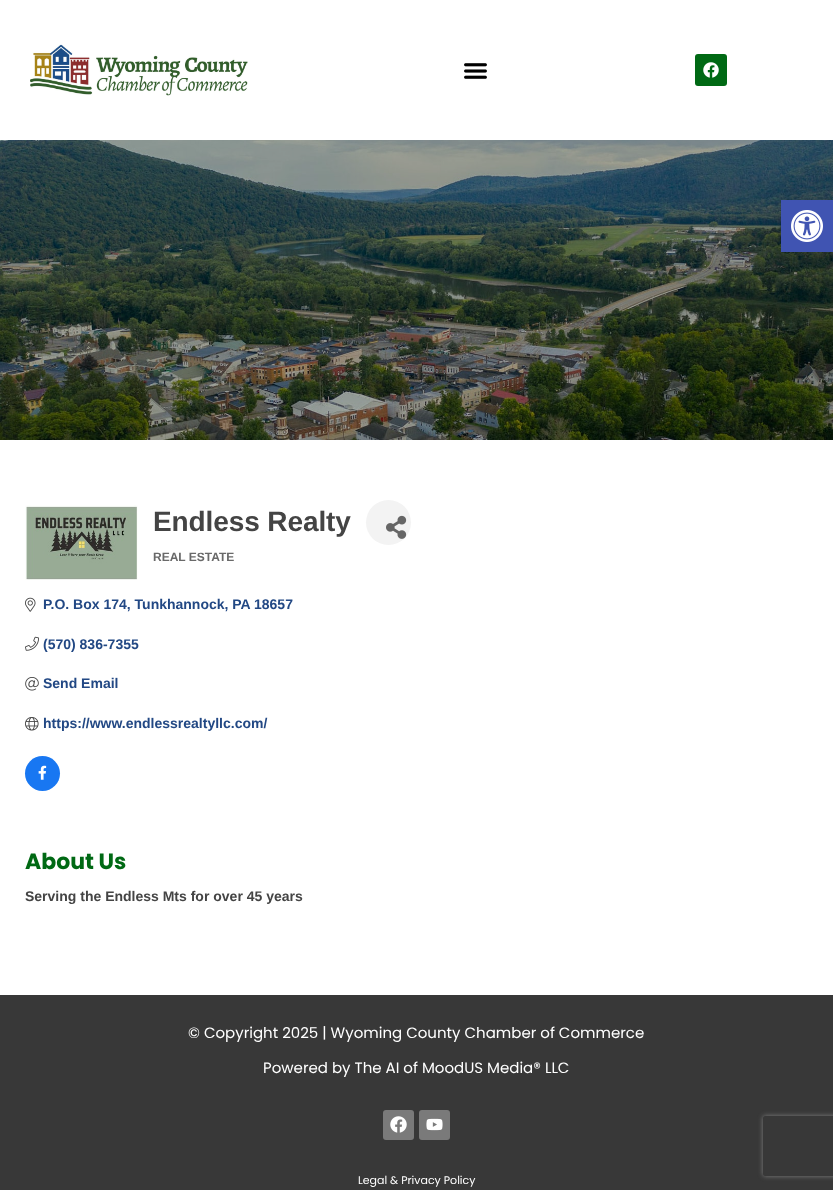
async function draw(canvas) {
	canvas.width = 833;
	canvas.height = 1190;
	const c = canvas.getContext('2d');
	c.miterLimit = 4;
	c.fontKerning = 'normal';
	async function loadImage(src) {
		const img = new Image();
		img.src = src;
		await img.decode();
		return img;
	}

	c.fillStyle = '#fff';
	c.fillRect(0, 0, 833, 1190);
	c.drawImage(await loadImage('img1.png'), 30, 44, 218, 52);
	c.drawImage(await loadImage('img2.png'), 464, 63, 23, 16);
	c.fillStyle = '#006914';
	c.beginPath();
	c.roundRect(695, 54, 32, 32, 3);
	c.fill();
	c.drawImage(await loadImage('img3.png'), 703, 62, 16, 16);
	c.drawImage(await loadImage('img5.png'), 0, 140, 833, 300);
	c.fillStyle = '#0000001a';
	c.filter = 'blur(5px)';
	c.beginPath();
	c.rect(781, 200, 52, 52);
	c.fill();
	c.filter = 'none';
	c.fillStyle = '#4054b2';
	c.fillRect(781, 200, 52, 52);
	c.drawImage(await loadImage('img4.png'), 791, 210, 32, 32);
	c.drawImage(await loadImage('img6.png'), 25, 505, 113, 75);
	c.letterSpacing = '-0.1px';
	c.font = 'bold 28px Liberation Sans';
	c.fillStyle = '#444';
	c.fillText('Endless Realty', 153, 531);
	c.fillStyle = '#f3f3f3';
	c.beginPath();
	c.arc(388.5, 522.5, 22.5, 0, 2 * Math.PI);
	c.fill();
	c.drawImage(await loadImage('img7.png'), 386, 515, 21, 24);
	c.letterSpacing = '0px';
	c.font = 'bold 12px Liberation Sans';
	c.fillStyle = '#696969';
	c.fillText('REAL ESTATE', 153, 561);
	c.drawImage(await loadImage('img8.png'), 25, 597, 11, 15);
	c.font = 'bold 14px Liberation Sans';
	c.fillStyle = '#224884';
	c.fillText('P.O. Box 174, Tunkhannock, PA', 43, 609);
	c.fillText('18657', 254, 609);
	c.drawImage(await loadImage('img9.png'), 25, 636, 14, 15);
	c.fillText('(570) 836-7355', 43, 649);
	c.drawImage(await loadImage('img10.png'), 25, 677, 14, 14);
	c.fillText('Send Email', 43, 688);
	c.drawImage(await loadImage('img11.png'), 25, 717, 14, 14);
	c.fillText('https://www.endlessrealtyllc.com/', 43, 728);
	c.fillStyle = '#1877f2';
	c.beginPath();
	c.arc(42.5, 773.5, 17.5, 0, 2 * Math.PI);
	c.fill();
	c.drawImage(await loadImage('img12.png'), 38, 765, 9, 15);
	c.font = 'bold 22px Poppins';
	c.fillStyle = '#006914';
	c.fillText('About Us', 25, 869);
	c.font = 'bold 14px Liberation Sans';
	c.fillStyle = '#444';
	c.fillText('Serving the Endless Mts for over 45 years', 25, 901);
	c.fillStyle = '#383838';
	c.fillRect(0, 995, 833, 195);
	c.font = '15px Poppins';
	c.fillStyle = '#fff';
	c.fillText('© Copyright 2025 | Wyoming County Chamber of Commerce', 188, 1038);
	c.fillText('Powered by The AI of MoodUS Media® LLC', 263, 1073);
	c.fillStyle = '#7a7a7a';
	c.beginPath();
	c.roundRect(383, 1110, 31, 30, 3);
	c.fill();
	c.drawImage(await loadImage('img13.png'), 390, 1116, 17, 17);
	c.beginPath();
	c.roundRect(419, 1110, 31, 30, 3);
	c.fill();
	c.drawImage(await loadImage('img14.png'), 426, 1118, 17, 13);
	c.font = '11px Poppins';
	c.fillStyle = '#fff';
	c.fillText('Legal & Privacy Policy', 358, 1184);
	c.save();
	c.beginPath();
	c.moveTo(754, 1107);
	c.lineTo(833, 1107);
	c.lineTo(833, 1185);
	c.lineTo(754, 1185);
	c.closePath();
	c.moveTo(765, 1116);
	c.lineTo(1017, 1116);
	c.bezierCurveTo(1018, 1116, 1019, 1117, 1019, 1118);
	c.lineTo(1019, 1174);
	c.bezierCurveTo(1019, 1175, 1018, 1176, 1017, 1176);
	c.lineTo(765, 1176);
	c.bezierCurveTo(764, 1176, 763, 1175, 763, 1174);
	c.lineTo(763, 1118);
	c.bezierCurveTo(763, 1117, 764, 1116, 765, 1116);
	c.closePath();
	c.clip('evenodd');
	c.fillStyle = '#808080';
	c.filter = 'blur(2.5px)';
	c.beginPath();
	c.roundRect(763, 1116, 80, 60, 2);
	c.fill();
	c.filter = 'none';
	c.restore();
}

draw(document.querySelector('canvas'));
